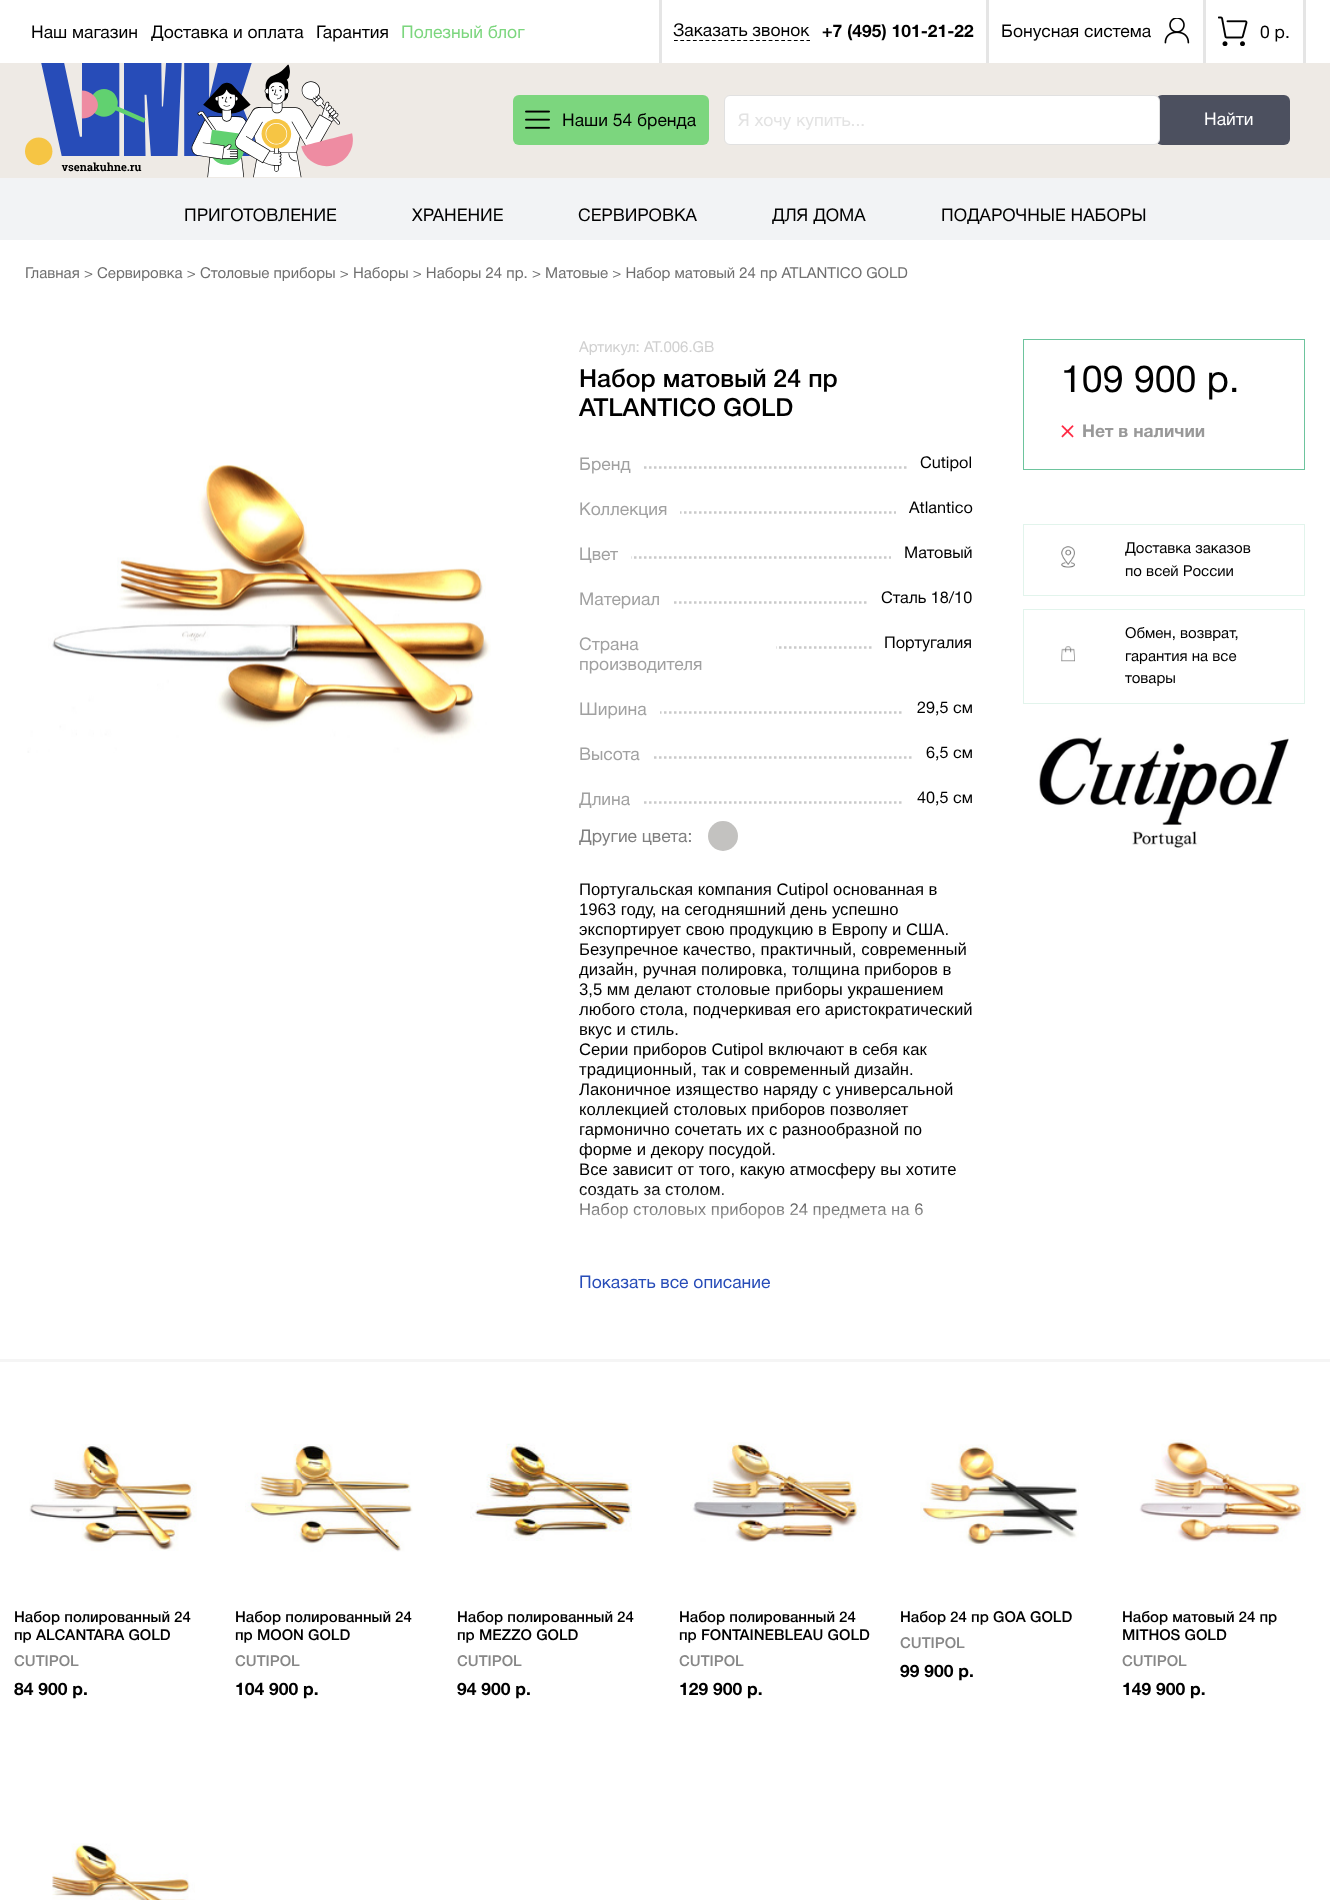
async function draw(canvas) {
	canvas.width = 1330;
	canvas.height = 1900;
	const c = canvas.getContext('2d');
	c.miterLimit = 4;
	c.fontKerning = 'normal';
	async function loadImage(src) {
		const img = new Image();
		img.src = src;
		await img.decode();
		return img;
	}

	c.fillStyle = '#fff';
	c.fillRect(0, 0, 1330, 1900);
	c.font = '17.5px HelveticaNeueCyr';
	c.fillStyle = '#000';
	for (const [text, x, y] of [
		['Наш магазин', 31, 38],
		['Доставка и оплата', 151, 38],
		['Гарантия', 316, 38],
	]) {
		c.fillText(text, x, y);
	}
	c.fillStyle = '#7cd67e';
	c.fillText('Полезный блог', 401, 38);
	c.fillStyle = '#e5e5e5';
	c.fillRect(986, 0, 3, 63);
	c.fillRect(659, 0, 3, 63);
	c.beginPath();
	c.moveTo(674, 40.5);
	c.lineTo(810, 40.5);
	c.strokeStyle = '#000';
	c.lineWidth = 1.2;
	c.setLineDash([3.75, 2.56]);
	c.stroke();
	c.fillStyle = '#000';
	c.fillText('Заказать звонок', 673, 36);
	c.font = 'bold 17.5px HelveticaNeueCyr';
	c.fillText('+7 (495) 101-21-22', 822, 37);
	c.font = '17.5px HelveticaNeueCyr';
	c.fillText('Бонусная система', 1001, 37);
	c.drawImage(await loadImage('img1.png'), 1164, 18, 26, 26);
	c.fillStyle = '#e5e5e5';
	c.fillRect(1303, 0, 3, 63);
	c.fillRect(1203, 0, 3, 63);
	c.drawImage(await loadImage('img2.png'), 1218, 16, 30, 30);
	c.fillStyle = '#000';
	c.fillText('0 р.', 1260, 38);
	c.fillStyle = '#eeeae5';
	c.fillRect(0, 63, 1330, 115);
	c.drawImage(await loadImage('img3.png'), 25, 63, 328, 115);
	c.fillStyle = '#7cd67e';
	c.beginPath();
	c.roundRect(513, 95, 196, 50, 6);
	c.fill();
	c.drawImage(await loadImage('img4.png'), 525, 110, 25, 19);
	c.fillStyle = '#000';
	c.fillText('Наши 54 бренда', 562, 126);
	c.fillStyle = '#4c505f';
	c.beginPath();
	c.roundRect(1156, 95, 134, 50, 6);
	c.fill();
	c.fillStyle = '#fff';
	c.beginPath();
	c.roundRect(724.5, 95.5, 435, 49, 5.5);
	c.fill();
	c.strokeStyle = '#e1e1e1';
	c.lineWidth = 1;
	c.setLineDash([]);
	c.stroke();
	c.fillStyle = '#e3e3e3';
	c.fillText('Я хочу купить...', 738, 126);
	c.fillStyle = '#fff';
	c.fillText('Найти', 1204, 125);
	c.fillStyle = '#f2f3f5';
	c.fillRect(0, 178, 1330, 62);
	c.fillStyle = '#000';
	for (const [text, x, y] of [
		['ПРИГОТОВЛЕНИЕ', 184, 221],
		['ХРАНЕНИЕ', 412, 221],
		['СЕРВИРОВКА', 578, 221],
		['ДЛЯ ДОМА', 772, 221],
		['ПОДАРОЧНЫЕ НАБОРЫ', 941, 221],
	]) {
		c.fillText(text, x, y);
	}
	c.font = '15px HelveticaNeueCyr';
	c.fillStyle = '#707070';
	c.fillText('Главная > Сервировка > Столовые приборы > Наборы > Наборы 24 пр. > Матовые > Набор матовый 24 пр ATLANTICO GOLD', 25, 278);
	c.drawImage(await loadImage('img5.png'), 27, 464, 464, 289);
	c.fillStyle = '#d0d0d0';
	c.fillText('Артикул: AT.006.GB', 579, 352);
	c.font = '500 25px HelveticaNeueCyr';
	c.fillStyle = '#000';
	c.fillText('Набор матовый 24 пр', 579, 387);
	c.fillText('ATLANTICO GOLD', 579, 416);
	c.beginPath();
	c.moveTo(579, 467.5);
	c.lineTo(972.5, 467.5);
	c.strokeStyle = '#cacaca';
	c.lineWidth = 2.5;
	c.setLineDash([2.5, 2.5]);
	c.stroke();
	c.fillStyle = '#fff';
	c.fillRect(579, 466, 63, 3);
	c.font = '17.5px HelveticaNeueCyr';
	c.fillStyle = '#a1a1a1';
	c.fillText('Бренд', 579, 470);
	c.fillStyle = '#fff';
	c.fillRect(909, 466, 63, 3);
	c.font = '16.25px HelveticaNeueCyr';
	c.fillStyle = '#000';
	c.fillText('Cutipol', 920, 468);
	c.beginPath();
	c.moveTo(579, 512.5);
	c.lineTo(972.5, 512.5);
	c.stroke();
	c.fillStyle = '#fff';
	c.fillRect(579, 511, 101, 3);
	c.font = '17.5px HelveticaNeueCyr';
	c.fillStyle = '#a1a1a1';
	c.fillText('Коллекция', 579, 515);
	c.fillStyle = '#fff';
	c.fillRect(896, 511, 76, 3);
	c.font = '16.25px HelveticaNeueCyr';
	c.fillStyle = '#000';
	c.fillText('Atlantico', 909, 513);
	c.beginPath();
	c.moveTo(579, 557.5);
	c.lineTo(972.5, 557.5);
	c.stroke();
	c.fillStyle = '#fff';
	c.fillRect(579, 556, 52, 3);
	c.font = '17.5px HelveticaNeueCyr';
	c.fillStyle = '#a1a1a1';
	c.fillText('Цвет', 579, 560);
	c.fillStyle = '#fff';
	c.fillRect(891, 556, 81, 3);
	c.font = '16.25px HelveticaNeueCyr';
	c.fillStyle = '#000';
	c.fillText('Матовый', 904, 558);
	c.beginPath();
	c.moveTo(579, 602.5);
	c.lineTo(972.5, 602.5);
	c.stroke();
	c.fillStyle = '#fff';
	c.fillRect(579, 601, 93, 3);
	c.font = '17.5px HelveticaNeueCyr';
	c.fillStyle = '#a1a1a1';
	c.fillText('Материал', 579, 605);
	c.fillStyle = '#fff';
	c.fillRect(869, 601, 103, 3);
	c.font = '16.25px HelveticaNeueCyr';
	c.fillStyle = '#000';
	c.fillText('Сталь 18/10', 881, 603);
	c.beginPath();
	c.moveTo(579, 647.5);
	c.lineTo(972.5, 647.5);
	c.stroke();
	c.fillStyle = '#fff';
	c.fillRect(579, 646, 197, 3);
	c.font = '17.5px HelveticaNeueCyr';
	c.fillStyle = '#a1a1a1';
	c.fillText('Страна', 579, 650);
	c.fillText('производителя', 579, 670);
	c.fillStyle = '#fff';
	c.fillRect(874, 646, 98, 3);
	c.font = '16.25px HelveticaNeueCyr';
	c.fillStyle = '#000';
	c.fillText('Португалия', 884, 648);
	c.beginPath();
	c.moveTo(579, 712.5);
	c.lineTo(972.5, 712.5);
	c.stroke();
	c.fillStyle = '#fff';
	c.fillRect(579, 711, 81, 3);
	c.font = '17.5px HelveticaNeueCyr';
	c.fillStyle = '#a1a1a1';
	c.fillText('Ширина', 579, 715);
	c.fillStyle = '#fff';
	c.fillRect(904, 711, 68, 3);
	c.font = '16.25px HelveticaNeueCyr';
	c.fillStyle = '#000';
	c.fillText('29,5 см', 917, 713);
	c.beginPath();
	c.moveTo(579, 757.5);
	c.lineTo(972.5, 757.5);
	c.stroke();
	c.fillStyle = '#fff';
	c.fillRect(579, 756, 73, 3);
	c.font = '17.5px HelveticaNeueCyr';
	c.fillStyle = '#a1a1a1';
	c.fillText('Высота', 579, 760);
	c.fillStyle = '#fff';
	c.fillRect(914, 756, 58, 3);
	c.font = '16.25px HelveticaNeueCyr';
	c.fillStyle = '#000';
	c.fillText('6,5 см', 926, 758);
	c.beginPath();
	c.moveTo(579, 802.5);
	c.lineTo(972.5, 802.5);
	c.stroke();
	c.fillStyle = '#fff';
	c.fillRect(579, 801, 63, 3);
	c.font = '17.5px HelveticaNeueCyr';
	c.fillStyle = '#a1a1a1';
	c.fillText('Длина', 579, 805);
	c.fillStyle = '#fff';
	c.fillRect(904, 801, 68, 3);
	c.font = '16.25px HelveticaNeueCyr';
	c.fillStyle = '#000';
	c.fillText('40,5 см', 917, 803);
	c.font = '17.5px HelveticaNeueCyr';
	c.fillStyle = '#808080';
	c.fillText('Другие цвета:', 579, 842);
	c.fillStyle = '#c3c2c0';
	c.beginPath();
	c.arc(723, 836, 15, 0, 2 * Math.PI);
	c.fill();
	c.font = '16.7px Liberation Sans';
	c.fillStyle = '#000';
	for (const [text, x, y] of [
		['Португальская компания Cutipol основанная в', 579, 895],
		['1963 году, на сегодняшний день успешно', 579, 915],
		['экспортирует свою продукцию в Европу и США.', 579, 935],
		['Безупречное качество, практичный, современный', 579, 955],
		['дизайн, ручная полировка, толщина приборов в', 579, 975],
		['3,5 мм делают столовые приборы украшением', 579, 995],
		['любого стола, подчеркивая его аристократический', 579, 1015],
		['вкус и стиль.', 579, 1035],
		['Серии приборов Cutipol включают в себя как', 579, 1055],
		['традиционный, так и современный дизайн.', 579, 1075],
		['Лаконичное изящество наряду с универсальной', 579, 1095],
		['коллекцией столовых приборов позволяет', 579, 1115],
		['гармонично сочетать их с разнообразной по', 579, 1135],
		['форме и декору посудой.', 579, 1155],
		['Все зависит от того, какую атмосферу вы хотите', 579, 1175],
		['создать за столом.', 579, 1195],
		['Набор столовых приборов 24 предмета на 6', 579, 1215],
	]) {
		c.fillText(text, x, y);
	}
	c.drawImage(await loadImage('img6.png'), 580, 1191, 343, 48);
	c.font = '17.5px HelveticaNeueCyr';
	c.fillStyle = '#274cb8';
	c.fillText('Показать все описание', 579, 1288);
	c.strokeStyle = '#6dc49d';
	c.lineWidth = 1;
	c.setLineDash([]);
	c.strokeRect(1023.5, 339.5, 281, 130);
	c.font = '37.5px HelveticaNeueCyr';
	c.fillStyle = '#000';
	c.fillText('109 900 р.', 1061, 392);
	c.drawImage(await loadImage('img7.png'), 1061, 425, 13, 13);
	c.font = 'bold 17.5px HelveticaNeueCyr';
	c.fillStyle = '#999';
	c.fillText('Нет в наличии', 1082, 437);
	c.strokeStyle = '#e2f4ec';
	c.strokeRect(1023.5, 524.5, 281, 71);
	c.drawImage(await loadImage('img8.png'), 1061, 546, 14, 22);
	c.font = '15px HelveticaNeueCyr';
	c.fillStyle = '#000';
	c.fillText('Доставка заказов', 1125, 553);
	c.fillText('по всей России', 1125, 576);
	c.strokeRect(1023.5, 609.5, 281, 94);
	c.drawImage(await loadImage('img9.png'), 1061, 646, 14, 16);
	for (const [text, x, y] of [
		['Обмен, возврат,', 1125, 638],
		['гарантия на все', 1125, 661],
		['товары', 1125, 683],
	]) {
		c.fillText(text, x, y);
	}
	c.drawImage(await loadImage('img10.png'), 1039, 737, 250, 111);
	c.fillStyle = '#f5f5f5';
	c.fillRect(0, 1359, 1330, 3);
	c.drawImage(await loadImage('img11.png'), 29, 1444, 168, 107);
	c.font = '500 15px HelveticaNeueCyr';
	c.fillStyle = '#000';
	c.fillText('Набор полированный 24', 14, 1622);
	c.fillText('пр ALCANTARA GOLD', 14, 1640);
	c.fillStyle = '#878787';
	c.fillText('CUTIPOL', 14, 1666);
	c.font = 'bold 17.5px HelveticaNeueCyr';
	c.fillStyle = '#000';
	c.fillText('84 900 р.', 14, 1695);
	c.drawImage(await loadImage('img12.png'), 245, 1444, 168, 108);
	c.font = '500 15px HelveticaNeueCyr';
	c.fillText('Набор полированный 24', 235, 1622);
	c.fillText('пр MOON GOLD', 235, 1640);
	c.fillStyle = '#878787';
	c.fillText('CUTIPOL', 235, 1666);
	c.font = 'bold 17.5px HelveticaNeueCyr';
	c.fillStyle = '#000';
	c.fillText('104 900 р.', 235, 1695);
	c.drawImage(await loadImage('img13.png'), 470, 1443, 162, 98);
	c.font = '500 15px HelveticaNeueCyr';
	c.fillText('Набор полированный 24', 457, 1622);
	c.fillText('пр MEZZO GOLD', 457, 1640);
	c.fillStyle = '#878787';
	c.fillText('CUTIPOL', 457, 1666);
	c.font = 'bold 17.5px HelveticaNeueCyr';
	c.fillStyle = '#000';
	c.fillText('94 900 р.', 457, 1695);
	c.drawImage(await loadImage('img14.png'), 690, 1442, 173, 100);
	c.font = '500 15px HelveticaNeueCyr';
	c.fillText('Набор полированный 24', 679, 1622);
	c.fillText('пр FONTAINEBLEAU GOLD', 679, 1640);
	c.fillStyle = '#878787';
	c.fillText('CUTIPOL', 679, 1666);
	c.font = 'bold 17.5px HelveticaNeueCyr';
	c.fillStyle = '#000';
	c.fillText('129 900 р.', 679, 1695);
	c.drawImage(await loadImage('img15.png'), 920, 1444, 159, 102);
	c.font = '500 15px HelveticaNeueCyr';
	c.fillText('Набор 24 пр GOA GOLD', 900, 1622);
	c.fillStyle = '#878787';
	c.fillText('CUTIPOL', 900, 1648);
	c.font = 'bold 17.5px HelveticaNeueCyr';
	c.fillStyle = '#000';
	c.fillText('99 900 р.', 900, 1677);
	c.drawImage(await loadImage('img16.png'), 1139, 1439, 167, 103);
	c.font = '500 15px HelveticaNeueCyr';
	c.fillText('Набор матовый 24 пр', 1122, 1622);
	c.fillText('MITHOS GOLD', 1122, 1640);
	c.fillStyle = '#878787';
	c.fillText('CUTIPOL', 1122, 1666);
	c.font = 'bold 17.5px HelveticaNeueCyr';
	c.fillStyle = '#000';
	c.fillText('149 900 р.', 1122, 1695);
	c.drawImage(await loadImage('img17.png'), 52, 1843, 143, 57);
}

draw(document.querySelector('canvas'));
